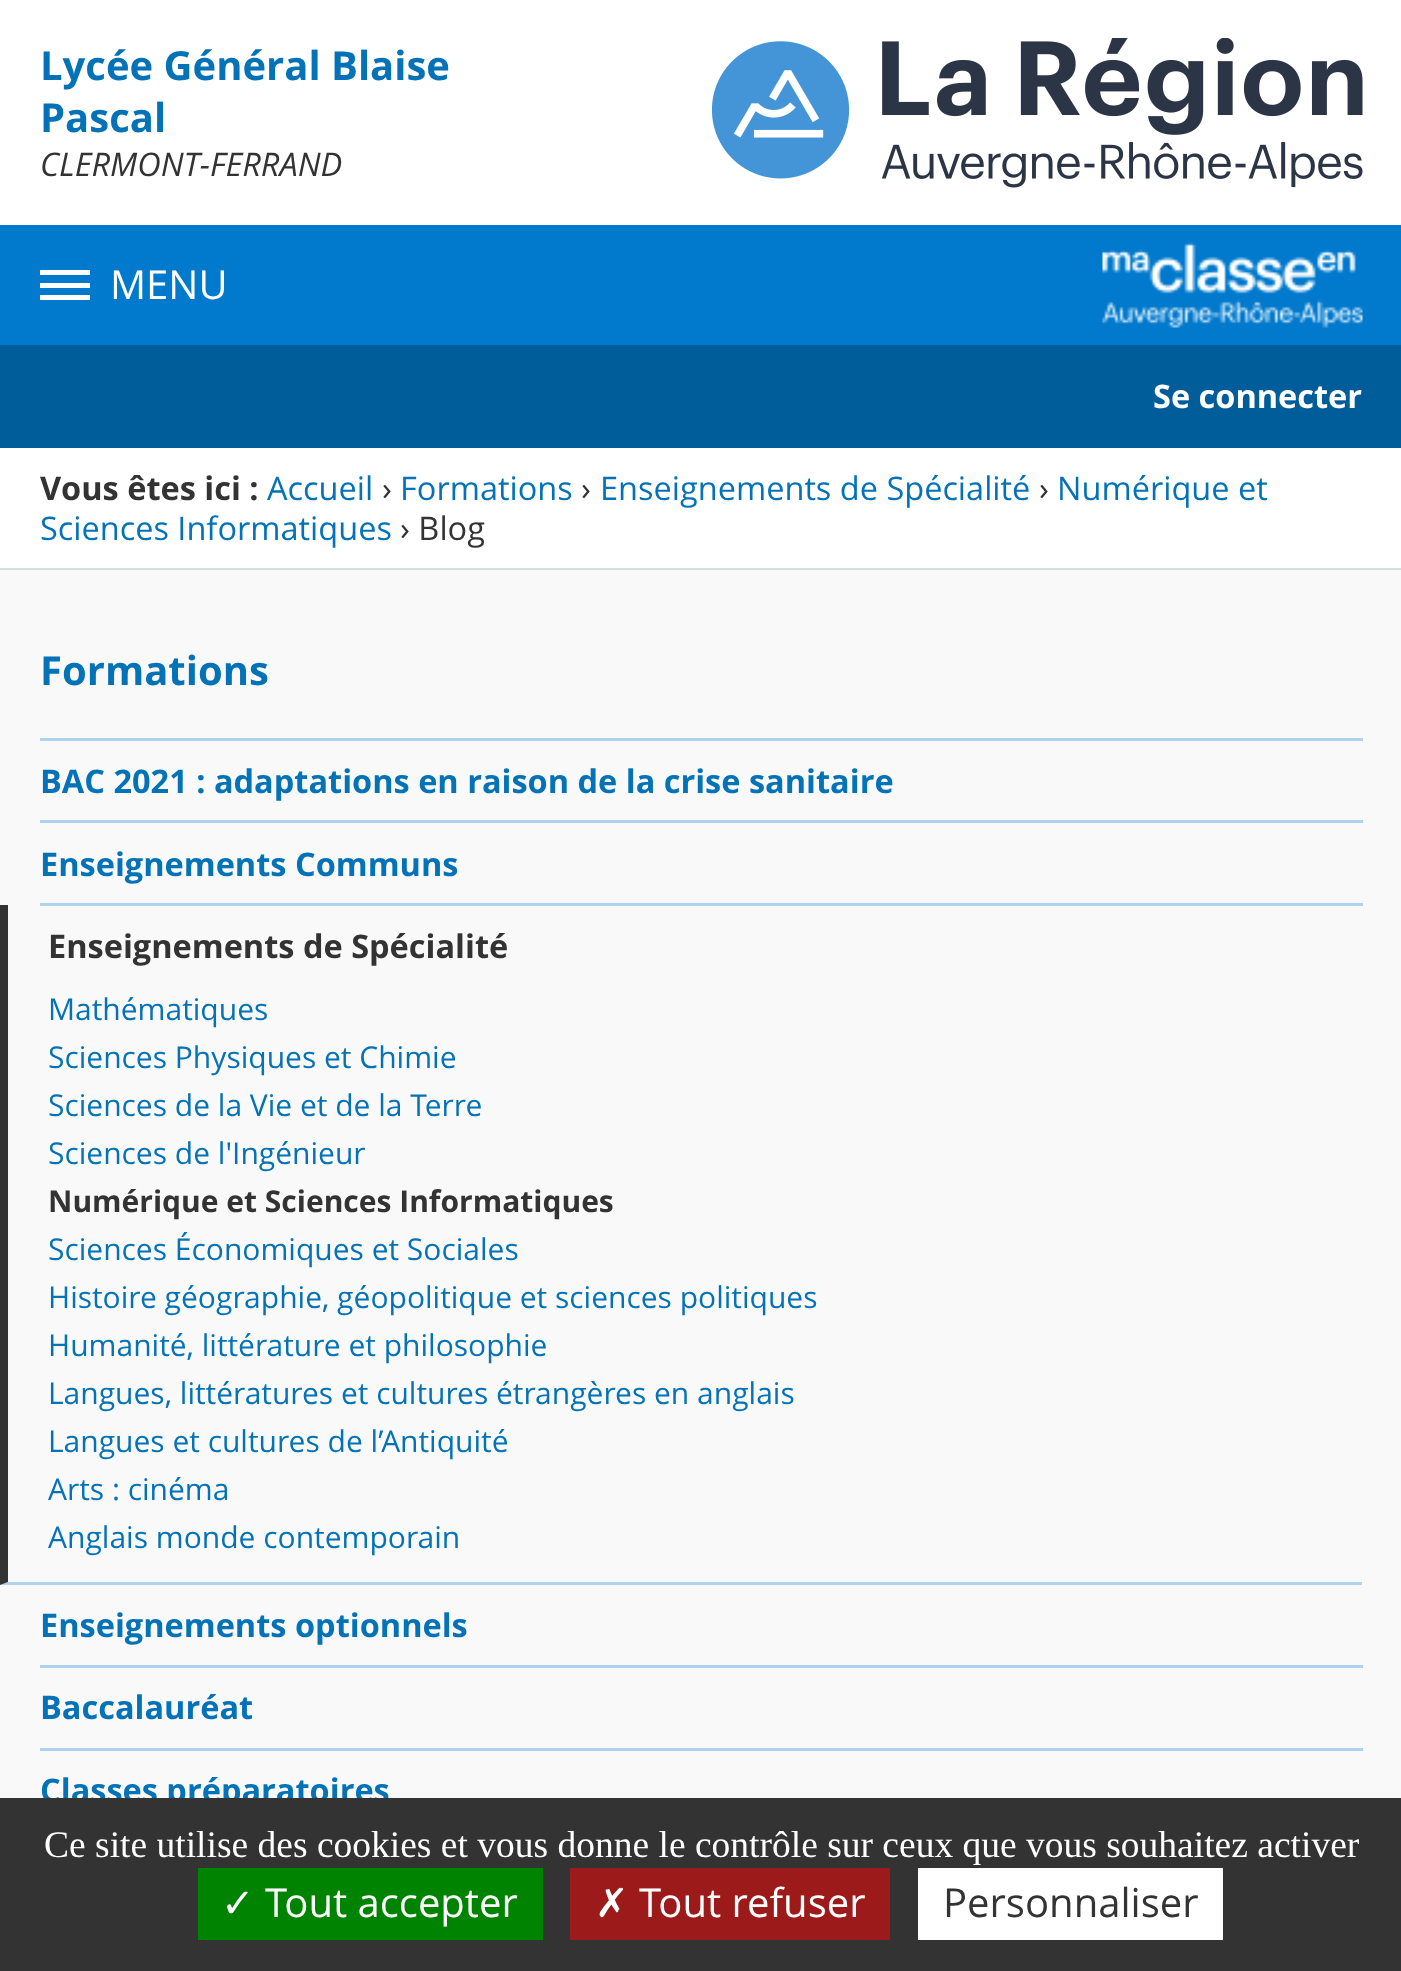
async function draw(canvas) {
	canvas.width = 1401;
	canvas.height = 1971;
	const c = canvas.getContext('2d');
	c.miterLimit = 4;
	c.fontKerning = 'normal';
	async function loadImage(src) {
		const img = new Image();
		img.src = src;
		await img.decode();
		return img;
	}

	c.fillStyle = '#fff';
	c.fillRect(0, 0, 1401, 1971);
	c.font = 'bold 40px Open Sans';
	c.fillStyle = '#0372b7';
	c.fillText('Lycée Général Blaise', 40, 80);
	c.fillText('Pascal', 40, 132);
	c.font = 'italic 32.5px Open Sans';
	c.fillStyle = '#333';
	c.fillText('CLERMONT-FERRAND', 40, 176);
	c.drawImage(await loadImage('img1.png'), 711, 38, 652, 150);
	c.fillStyle = '#017acd';
	c.fillRect(0, 225, 1401, 120);
	c.drawImage(await loadImage('img2.png'), 1102, 242, 261, 86);
	for (const [x, y, w, h, color] of [
		[40, 270, 50, 5, '#fff'],
		[40, 283, 50, 5, '#fff'],
		[40, 295, 50, 5, '#fff'],
	]) {
		c.fillStyle = color;
		c.fillRect(x, y, w, h);
	}
	c.font = '40px Open Sans';
	c.fillText('MENU', 110, 299);
	c.fillStyle = '#015c9a';
	c.fillRect(0, 345, 1401, 103);
	c.font = 'bold 32.5px Open Sans';
	c.fillStyle = '#fff';
	c.fillText('Se connecter', 1153, 408);
	c.fillStyle = '#d7dee2';
	c.fillRect(0, 568, 1401, 2);
	c.fillStyle = '#333';
	c.fillText('Vous êtes ici :', 40, 500);
	c.font = '32.5px Open Sans';
	c.fillStyle = '#0372b7';
	c.fillText('Accueil', 267, 500);
	c.fillStyle = '#333';
	c.fillText('›', 382, 500);
	c.fillStyle = '#0372b7';
	c.fillText('Formations', 400, 500);
	c.fillStyle = '#333';
	c.fillText('›', 581, 500);
	c.fillStyle = '#0372b7';
	c.fillText('Enseignements de Spécialité', 600, 500);
	c.fillStyle = '#333';
	c.fillText('›', 1039, 500);
	c.fillStyle = '#0372b7';
	c.fillText('Numérique et', 1057, 500);
	c.fillText('Sciences Informatiques', 40, 540);
	c.fillStyle = '#333';
	c.fillText('› Blog', 400, 540);
	c.fillStyle = '#f9f9f9';
	c.fillRect(0, 570, 1401, 1228);
	c.font = 'bold 40px Open Sans';
	c.fillStyle = '#0372b7';
	c.fillText('Formations', 40, 685);
	c.fillStyle = '#afd3ec';
	c.fillRect(40, 738, 1323, 3);
	c.fillRect(40, 820, 1323, 3);
	c.font = 'bold 32.5px Open Sans';
	c.fillStyle = '#0372b7';
	c.fillText('BAC 2021 : adaptations en raison de la crise sanitaire', 40, 793);
	c.fillStyle = '#afd3ec';
	c.fillRect(40, 903, 1323, 3);
	c.fillStyle = '#0372b7';
	c.fillText('Enseignements Communs', 40, 876);
	c.fillStyle = '#afd3ec';
	c.beginPath();
	c.moveTo(1362, 1585);
	c.lineTo(0, 1585);
	c.lineTo(8, 1582);
	c.lineTo(1362, 1582);
	c.closePath();
	c.fill();
	c.fillStyle = '#333';
	c.beginPath();
	c.moveTo(0, 1585);
	c.lineTo(0, 905);
	c.lineTo(8, 905);
	c.lineTo(8, 1582);
	c.closePath();
	c.fill();
	c.fillText('Enseignements de Spécialité', 48, 958);
	c.font = '30px Open Sans';
	c.fillStyle = '#0372b7';
	for (const [text, x, y] of [
		['Mathématiques', 48, 1020],
		['Sciences Physiques et Chimie', 48, 1068],
		['Sciences de la Vie et de la Terre', 48, 1116],
		['Sciences de l\'Ingénieur', 48, 1164],
	]) {
		c.fillText(text, x, y);
	}
	c.font = 'bold 30px Open Sans';
	c.fillStyle = '#333';
	c.fillText('Numérique et Sciences Informatiques', 48, 1212);
	c.font = '30px Open Sans';
	c.fillStyle = '#0372b7';
	for (const [text, x, y] of [
		['Sciences Économiques et Sociales', 48, 1260],
		['Histoire géographie, géopolitique et sciences politiques', 48, 1308],
		['Humanité, littérature et philosophie', 48, 1356],
		['Langues, littératures et cultures étrangères en anglais', 48, 1404],
		['Langues et cultures de l’Antiquité', 48, 1452],
		['Arts : cinéma', 48, 1500],
		['Anglais monde contemporain', 48, 1548],
	]) {
		c.fillText(text, x, y);
	}
	c.fillStyle = '#afd3ec';
	c.fillRect(40, 1665, 1323, 3);
	c.font = 'bold 32.5px Open Sans';
	c.fillStyle = '#0372b7';
	c.fillText('Enseignements optionnels', 40, 1637);
	c.fillStyle = '#afd3ec';
	c.fillRect(40, 1748, 1323, 3);
	c.fillStyle = '#0372b7';
	c.fillText('Baccalauréat', 40, 1719);
	c.fillText('Classes préparatoires', 40, 1802);
	c.fillStyle = '#333';
	c.fillRect(0, 1798, 1401, 173);
	c.font = '37.5px Liberation Serif';
	c.fillStyle = '#fff';
	c.fillText('Ce site utilise des cookies et vous donne le contrôle sur ceux que vous souhaitez activer', 44, 1857);
	c.fillStyle = '#008300';
	c.fillRect(198, 1868, 345, 72);
	c.font = '40px DejaVu Sans';
	c.fillStyle = '#fff';
	c.fillText('✓', 221, 1917);
	c.font = '40px Open Sans';
	c.fillText('Tout accepter', 265, 1917);
	c.fillStyle = '#9c1a1a';
	c.fillRect(570, 1868, 320, 72);
	c.font = '40px DejaVu Sans';
	c.fillStyle = '#fff';
	c.fillText('✗', 595, 1917);
	c.font = '40px Open Sans';
	c.fillText('Tout refuser', 639, 1917);
	c.fillRect(918, 1868, 305, 72);
	c.fillStyle = '#333';
	c.fillText('Personnaliser', 943, 1917);
}

draw(document.querySelector('canvas'));
